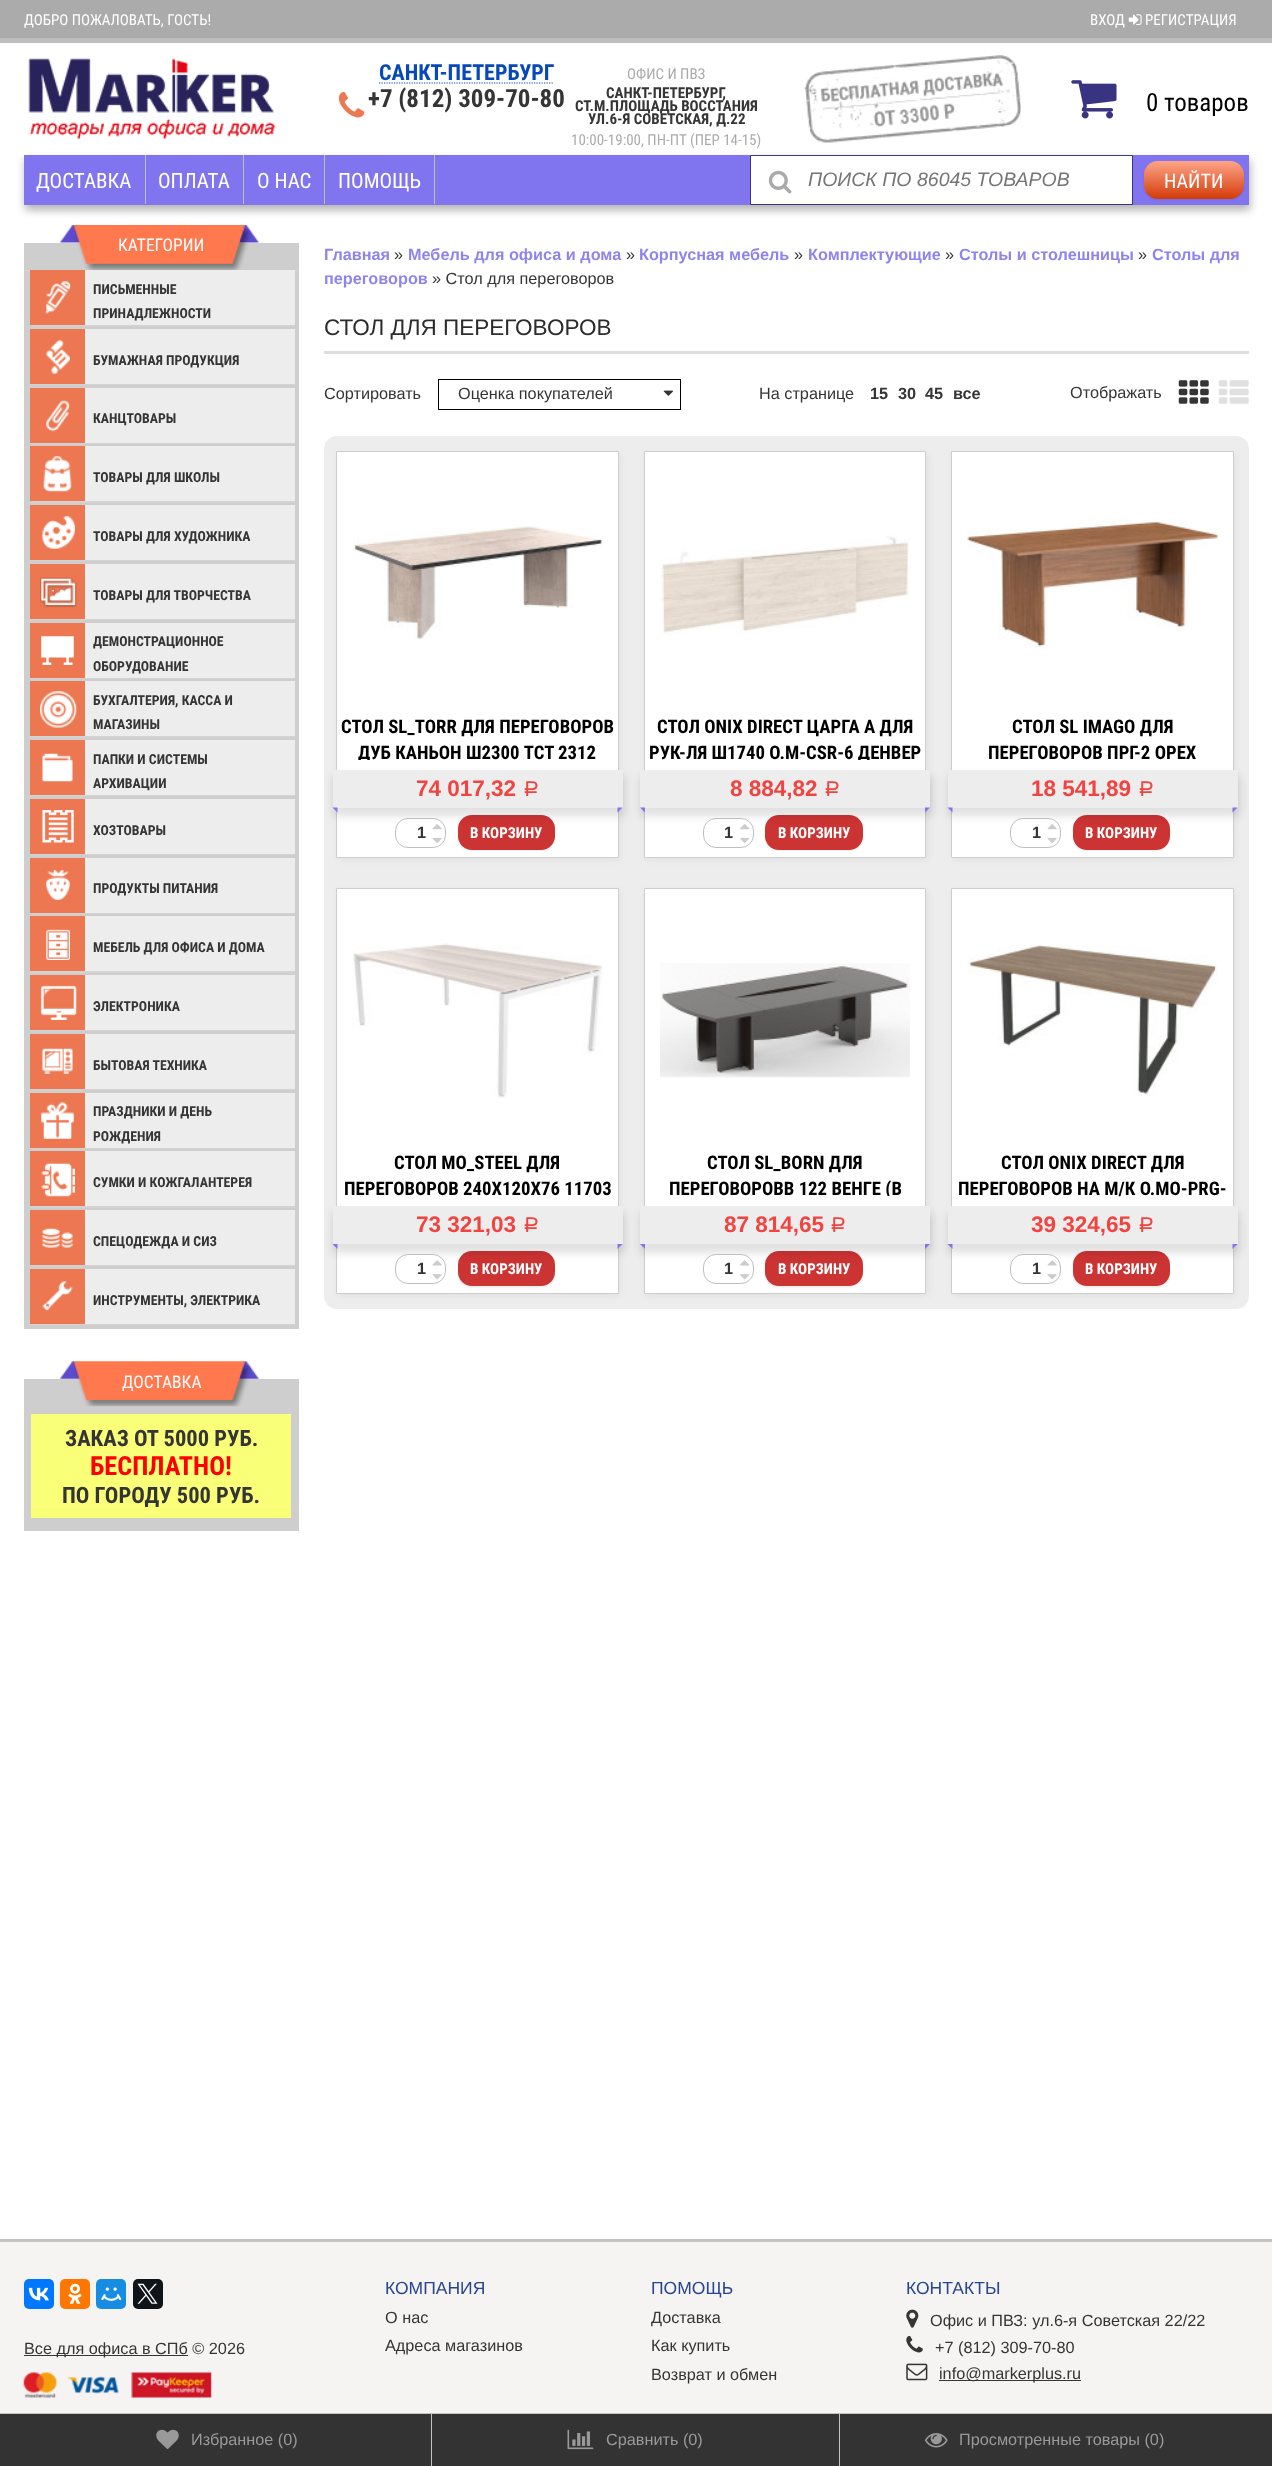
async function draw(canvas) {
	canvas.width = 1272;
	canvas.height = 2466;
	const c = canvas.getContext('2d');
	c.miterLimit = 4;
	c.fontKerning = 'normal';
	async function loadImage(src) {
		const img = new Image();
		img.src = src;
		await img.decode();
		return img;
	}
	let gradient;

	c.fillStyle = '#fff';
	c.fillRect(0, 0, 1272, 2466);
	c.fillStyle = '#ababab';
	c.fillRect(0, 0, 1272, 38);
	c.fillStyle = '#bebebe';
	c.fillRect(0, 38, 1272, 5);
	c.font = '15px Roboto Condensed';
	c.fillStyle = '#fff';
	c.fillText('ДОБРО ПОЖАЛОВАТЬ, ГОСТЬ!', 24, 25);
	c.fillText('ВХОД', 1090, 25);
	c.drawImage(await loadImage('img1.png'), 1128, 14, 14, 11);
	c.fillText('РЕГИСТРАЦИЯ', 1145, 25);
	c.drawImage(await loadImage('img2.png'), 28, 58, 248, 81);
	c.drawImage(await loadImage('img3.png'), 339, 92, 26, 26);
	c.beginPath();
	c.moveTo(379, 83);
	c.lineTo(554, 83);
	c.strokeStyle = '#0649b7';
	c.lineWidth = 1.2;
	c.setLineDash([1.25, 1.25]);
	c.stroke();
	c.font = 'bold 22px Roboto Condensed';
	c.fillStyle = '#0649b7';
	c.fillText('САНКТ-ПЕТЕРБУРГ', 379, 80);
	c.font = 'bold 25px Roboto Condensed';
	c.fillStyle = '#353535';
	c.fillText('+7 (812) 309-70-80', 368, 107);
	c.font = '15px Roboto Condensed';
	c.fillStyle = '#ababab';
	c.fillText('ОФИС И ПВЗ', 627, 79);
	c.font = 'bold 15px Roboto Condensed';
	c.fillStyle = '#353535';
	for (const [text, x, y] of [
		['САНКТ-ПЕТЕРБУРГ,', 606, 98],
		['СТ.М.ПЛОЩАДЬ ВОССТАНИЯ', 575, 111],
		['УЛ.6-Я СОВЕТСКАЯ, Д.22', 588, 124],
	]) {
		c.fillText(text, x, y);
	}
	c.fillStyle = '#999696bf';
	c.filter = 'blur(4px)';
	c.beginPath();
	c.rect(25, 160, 1225, 50);
	c.fill();
	c.filter = 'none';
	c.font = '15px Roboto Condensed';
	c.fillStyle = '#ababab';
	c.fillText('10:00-19:00, ПН-ПТ (ПЕР 14-15)', 571, 145);
	c.drawImage(await loadImage('img4.png'), 804, 55, 217, 88);
	c.drawImage(await loadImage('img5.png'), 1071, 80, 46, 39);
	c.font = '25px Roboto Condensed';
	c.fillStyle = '#000';
	c.fillText('0 товаров', 1146, 111);
	c.fillStyle = '#8074ef';
	c.fillRect(24, 155, 1225, 50);
	c.fillStyle = '#bebebe';
	c.fillRect(145, 155, 1, 49);
	c.font = '21px Roboto Condensed';
	c.fillStyle = '#fff';
	c.fillText('ДОСТАВКА', 36, 188);
	c.fillStyle = '#bebebe';
	c.fillRect(243, 155, 1, 49);
	c.fillStyle = '#fff';
	c.fillText('ОПЛАТА', 158, 188);
	c.fillStyle = '#bebebe';
	c.fillRect(324, 155, 1, 49);
	c.fillStyle = '#fff';
	c.fillText('О НАС', 257, 188);
	c.fillStyle = '#bebebe';
	c.fillRect(434, 155, 1, 49);
	c.fillStyle = '#fff';
	c.fillText('ПОМОЩЬ', 338, 188);
	c.beginPath();
	c.rect(750.5, 155.5, 382, 49);
	c.fill();
	c.strokeStyle = '#3a3483';
	c.lineWidth = 1;
	c.setLineDash([]);
	c.stroke();
	c.drawImage(await loadImage('img6.png'), 768, 170, 24, 24);
	c.font = 'italic 19.5px Liberation Sans';
	c.fillStyle = '#757575';
	c.fillText('ПОИСК ПО 86045 ТОВАРОВ', 808, 186);
	c.fillStyle = '#04040412';
	c.filter = 'blur(1px)';
	c.beginPath();
	c.roundRect(1144, 163, 100, 37, 14);
	c.fill();
	c.filter = 'none';
	gradient = c.createLinearGradient(1194, 199, 1194, 161);
	gradient.addColorStop(0, '#d33b09');
	gradient.addColorStop(1, '#fea588');
	c.fillStyle = gradient;
	c.beginPath();
	c.roundRect(1144, 161, 100, 38, 14);
	c.fill();
	c.font = '20px Roboto Condensed';
	c.fillStyle = '#fff';
	c.fillText('НАЙТИ', 1164, 188);
	c.fillStyle = '#cecece';
	c.fillRect(24, 243, 275, 1086);
	c.drawImage(await loadImage('img7.png'), 60, 225, 199, 45);
	c.fillStyle = '#d3d3d3';
	c.beginPath();
	c.moveTo(24, 270);
	c.lineTo(24, 271);
	c.lineTo(299, 271);
	c.lineTo(299, 244);
	c.lineTo(299, 270);
	c.closePath();
	c.fill();
	c.font = '17.5px Roboto Condensed';
	c.fillStyle = '#fff';
	c.fillText('КАТЕГОРИИ', 118, 251);
	for (const [x, y, w, h, color] of [
		[30, 325, 265, 1, '#d3d3d3'],
		[85, 270, 210, 55, '#ededed'],
		[30, 270, 55, 55, '#ed7751'],
	]) {
		c.fillStyle = color;
		c.fillRect(x, y, w, h);
	}
	c.drawImage(await loadImage('img8.png'), 45, 281, 26, 33);
	c.font = 'bold 13.75px Roboto Condensed';
	c.fillStyle = '#353535';
	c.fillText('ПИСЬМЕННЫЕ', 93, 294);
	c.fillText('ПРИНАДЛЕЖНОСТИ', 93, 318);
	for (const [x, y, w, h, color] of [
		[30, 384, 265, 1, '#d3d3d3'],
		[85, 329, 210, 55, '#ededed'],
		[30, 329, 55, 55, '#ed7751'],
	]) {
		c.fillStyle = color;
		c.fillRect(x, y, w, h);
	}
	c.drawImage(await loadImage('img9.png'), 46, 340, 24, 34);
	c.fillStyle = '#353535';
	c.fillText('БУМАЖНАЯ ПРОДУКЦИЯ', 93, 365);
	for (const [x, y, w, h, color] of [
		[30, 443, 265, 1, '#d3d3d3'],
		[85, 388, 210, 55, '#ededed'],
		[30, 388, 55, 55, '#ed7751'],
	]) {
		c.fillStyle = color;
		c.fillRect(x, y, w, h);
	}
	c.drawImage(await loadImage('img10.png'), 46, 400, 24, 32);
	c.fillStyle = '#353535';
	c.fillText('КАНЦТОВАРЫ', 93, 423);
	for (const [x, y, w, h, color] of [
		[30, 501, 265, 2, '#d3d3d3'],
		[85, 446, 210, 55, '#ededed'],
		[30, 446, 55, 55, '#ed7751'],
	]) {
		c.fillStyle = color;
		c.fillRect(x, y, w, h);
	}
	c.drawImage(await loadImage('img11.png'), 43, 456, 29, 36);
	c.fillStyle = '#353535';
	c.fillText('ТОВАРЫ ДЛЯ ШКОЛЫ', 93, 482);
	for (const [x, y, w, h, color] of [
		[30, 560, 265, 1, '#d3d3d3'],
		[85, 505, 210, 55, '#ededed'],
		[30, 505, 55, 55, '#ed7751'],
	]) {
		c.fillStyle = color;
		c.fillRect(x, y, w, h);
	}
	c.drawImage(await loadImage('img12.png'), 42, 516, 33, 33);
	c.fillStyle = '#353535';
	c.fillText('ТОВАРЫ ДЛЯ ХУДОЖНИКА', 93, 541);
	for (const [x, y, w, h, color] of [
		[30, 619, 265, 1, '#d3d3d3'],
		[85, 564, 210, 55, '#ededed'],
		[30, 564, 55, 55, '#ed7751'],
	]) {
		c.fillStyle = color;
		c.fillRect(x, y, w, h);
	}
	c.drawImage(await loadImage('img13.png'), 40, 577, 37, 31);
	c.fillStyle = '#353535';
	c.fillText('ТОВАРЫ ДЛЯ ТВОРЧЕСТВА', 93, 600);
	for (const [x, y, w, h, color] of [
		[30, 678, 265, 1, '#d3d3d3'],
		[85, 623, 210, 55, '#ededed'],
		[30, 623, 55, 55, '#ed7751'],
	]) {
		c.fillStyle = color;
		c.fillRect(x, y, w, h);
	}
	c.drawImage(await loadImage('img14.png'), 41, 636, 33, 29);
	c.fillStyle = '#353535';
	c.fillText('ДЕМОНСТРАЦИОННОЕ', 93, 646);
	c.fillText('ОБОРУДОВАНИЕ', 93, 671);
	for (const [x, y, w, h, color] of [
		[30, 736, 265, 2, '#d3d3d3'],
		[85, 681, 210, 55, '#ededed'],
		[30, 681, 55, 55, '#ed7751'],
	]) {
		c.fillStyle = color;
		c.fillRect(x, y, w, h);
	}
	c.drawImage(await loadImage('img15.png'), 40, 691, 37, 37);
	c.fillStyle = '#353535';
	c.fillText('БУХГАЛТЕРИЯ, КАССА И', 93, 705);
	c.fillText('МАГАЗИНЫ', 93, 729);
	for (const [x, y, w, h, color] of [
		[30, 795, 265, 1, '#d3d3d3'],
		[85, 740, 210, 55, '#ededed'],
		[30, 740, 55, 55, '#ed7751'],
	]) {
		c.fillStyle = color;
		c.fillRect(x, y, w, h);
	}
	c.drawImage(await loadImage('img16.png'), 42, 753, 31, 29);
	c.fillStyle = '#353535';
	c.fillText('ПАПКИ И СИСТЕМЫ', 93, 764);
	c.fillText('АРХИВАЦИИ', 93, 788);
	for (const [x, y, w, h, color] of [
		[30, 854, 265, 1, '#d3d3d3'],
		[85, 799, 210, 55, '#ededed'],
		[30, 799, 55, 55, '#ed7751'],
	]) {
		c.fillStyle = color;
		c.fillRect(x, y, w, h);
	}
	c.drawImage(await loadImage('img17.png'), 42, 810, 32, 33);
	c.fillStyle = '#353535';
	c.fillText('ХОЗТОВАРЫ', 93, 835);
	for (const [x, y, w, h, color] of [
		[30, 913, 265, 1, '#d3d3d3'],
		[85, 858, 210, 55, '#ededed'],
		[30, 858, 55, 55, '#ed7751'],
	]) {
		c.fillStyle = color;
		c.fillRect(x, y, w, h);
	}
	c.drawImage(await loadImage('img18.png'), 46, 870, 24, 30);
	c.fillStyle = '#353535';
	c.fillText('ПРОДУКТЫ ПИТАНИЯ', 93, 893);
	for (const [x, y, w, h, color] of [
		[30, 971, 265, 2, '#d3d3d3'],
		[85, 916, 210, 55, '#ededed'],
		[30, 916, 55, 55, '#ed7751'],
	]) {
		c.fillStyle = color;
		c.fillRect(x, y, w, h);
	}
	c.drawImage(await loadImage('img19.png'), 46, 929, 24, 31);
	c.fillStyle = '#353535';
	c.fillText('МЕБЕЛЬ ДЛЯ ОФИСА И ДОМА', 93, 952);
	for (const [x, y, w, h, color] of [
		[30, 1030, 265, 1, '#d3d3d3'],
		[85, 975, 210, 55, '#ededed'],
		[30, 975, 55, 55, '#ed7751'],
	]) {
		c.fillStyle = color;
		c.fillRect(x, y, w, h);
	}
	c.drawImage(await loadImage('img20.png'), 40, 985, 37, 35);
	c.fillStyle = '#353535';
	c.fillText('ЭЛЕКТРОНИКА', 93, 1011);
	for (const [x, y, w, h, color] of [
		[30, 1089, 265, 1, '#d3d3d3'],
		[85, 1034, 210, 55, '#ededed'],
		[30, 1034, 55, 55, '#ed7751'],
	]) {
		c.fillStyle = color;
		c.fillRect(x, y, w, h);
	}
	c.drawImage(await loadImage('img21.png'), 42, 1048, 31, 26);
	c.fillStyle = '#353535';
	c.fillText('БЫТОВАЯ ТЕХНИКА', 93, 1070);
	for (const [x, y, w, h, color] of [
		[30, 1148, 265, 1, '#d3d3d3'],
		[85, 1093, 210, 55, '#ededed'],
		[30, 1093, 55, 55, '#ed7751'],
	]) {
		c.fillStyle = color;
		c.fillRect(x, y, w, h);
	}
	c.drawImage(await loadImage('img22.png'), 41, 1102, 33, 37);
	c.fillStyle = '#353535';
	c.fillText('ПРАЗДНИКИ И ДЕНЬ', 93, 1116);
	c.fillText('РОЖДЕНИЯ', 93, 1141);
	for (const [x, y, w, h, color] of [
		[30, 1206, 265, 2, '#d3d3d3'],
		[85, 1151, 210, 55, '#ededed'],
		[30, 1151, 55, 55, '#ed7751'],
	]) {
		c.fillStyle = color;
		c.fillRect(x, y, w, h);
	}
	c.drawImage(await loadImage('img23.png'), 41, 1162, 34, 35);
	c.fillStyle = '#353535';
	c.fillText('СУМКИ И КОЖГАЛАНТЕРЕЯ', 93, 1187);
	for (const [x, y, w, h, color] of [
		[30, 1265, 265, 1, '#d3d3d3'],
		[85, 1210, 210, 55, '#ededed'],
		[30, 1210, 55, 55, '#ed7751'],
	]) {
		c.fillStyle = color;
		c.fillRect(x, y, w, h);
	}
	c.drawImage(await loadImage('img24.png'), 42, 1228, 31, 20);
	c.fillStyle = '#353535';
	c.fillText('СПЕЦОДЕЖДА И СИЗ', 93, 1246);
	for (const [x, y, w, h, color] of [
		[30, 1324, 265, 1, '#d3d3d3'],
		[85, 1269, 210, 55, '#ededed'],
		[30, 1269, 55, 55, '#ed7751'],
	]) {
		c.fillStyle = color;
		c.fillRect(x, y, w, h);
	}
	c.drawImage(await loadImage('img25.png'), 42, 1281, 31, 30);
	c.fillStyle = '#353535';
	c.fillText('ИНСТРУМЕНТЫ, ЭЛЕКТРИКА', 93, 1305);
	c.fillStyle = '#cecece';
	c.fillRect(24, 1379, 275, 152);
	c.drawImage(await loadImage('img26.png'), 60, 1361, 199, 46);
	c.font = '17.5px Roboto Condensed';
	c.fillStyle = '#fff';
	c.fillText('ДОСТАВКА', 122, 1388);
	c.fillStyle = '#faff78';
	c.fillRect(31, 1414, 260, 104);
	c.font = 'bold 22.5px Roboto Condensed';
	c.fillStyle = '#353535';
	c.fillText('ЗАКАЗ ОТ 5000 РУБ.', 65, 1446);
	c.font = 'bold 26.25px Roboto Condensed';
	c.fillStyle = '#f00';
	c.fillText('БЕСПЛАТНО!', 90, 1475);
	c.font = 'bold 22.5px Roboto Condensed';
	c.fillStyle = '#353535';
	c.fillText('ПО ГОРОДУ 500 РУБ.', 62, 1503);
	c.font = 'bold 16.25px Liberation Sans';
	c.fillStyle = '#8f84ef';
	c.fillText('Главная', 324, 260);
	c.font = '16.25px Liberation Sans';
	c.fillStyle = '#353535';
	c.fillText('»', 394, 260);
	c.font = 'bold 16.25px Liberation Sans';
	c.fillStyle = '#8f84ef';
	c.fillText('Мебель для офиса и дома', 408, 260);
	c.font = '16.25px Liberation Sans';
	c.fillStyle = '#353535';
	c.fillText('»', 626, 260);
	c.font = 'bold 16.25px Liberation Sans';
	c.fillStyle = '#8f84ef';
	c.fillText('Корпусная мебель', 639, 260);
	c.font = '16.25px Liberation Sans';
	c.fillStyle = '#353535';
	c.fillText('»', 794, 260);
	c.font = 'bold 16.25px Liberation Sans';
	c.fillStyle = '#8f84ef';
	c.fillText('Комплектующие', 808, 260);
	c.font = '16.25px Liberation Sans';
	c.fillStyle = '#353535';
	c.fillText('»', 945, 260);
	c.font = 'bold 16.25px Liberation Sans';
	c.fillStyle = '#8f84ef';
	c.fillText('Столы и столешницы', 959, 260);
	c.font = '16.25px Liberation Sans';
	c.fillStyle = '#353535';
	c.fillText('»', 1138, 260);
	c.font = 'bold 16.25px Liberation Sans';
	c.fillStyle = '#8f84ef';
	c.fillText('Столы для', 1152, 260);
	c.fillText('переговоров', 324, 284);
	c.font = '16.25px Liberation Sans';
	c.fillStyle = '#353535';
	c.fillText('» Стол для переговоров', 432, 284);
	c.fillStyle = '#dedede';
	c.fillRect(324, 351, 925, 3);
	c.font = '22.5px Liberation Sans';
	c.fillStyle = '#2c2c2c';
	c.fillText('СТОЛ ДЛЯ ПЕРЕГОВОРОВ', 324, 335);
	c.font = '16.25px Liberation Sans';
	c.fillStyle = '#353535';
	c.fillText('Сортировать', 324, 399);
	c.strokeStyle = '#000';
	c.strokeRect(438.5, 379.5, 242, 30);
	c.fillText('Оценка покупателей', 458, 399);
	c.drawImage(await loadImage('img27.png'), 663, 390, 10, 6);
	c.fillText('На странице', 759, 399);
	c.font = 'bold 16.25px Liberation Sans';
	for (const [text, x, y] of [
		['15', 870, 399],
		['30', 898, 399],
		['45', 925, 399],
		['все', 953, 399],
	]) {
		c.fillText(text, x, y);
	}
	c.font = '16.25px Liberation Sans';
	c.fillText('Отображать', 1070, 398);
	c.drawImage(await loadImage('img28.png'), 1178, 380, 31, 24);
	c.drawImage(await loadImage('img29.png'), 1218, 380, 31, 24);
	c.fillStyle = '#ededed';
	c.beginPath();
	c.roundRect(324, 436, 925, 873, 13);
	c.fill();
	c.fillStyle = '#0000000d';
	c.filter = 'blur(3px)';
	c.beginPath();
	c.rect(338, 454, 282, 406);
	c.fill();
	c.filter = 'none';
	c.fillStyle = '#fff';
	c.beginPath();
	c.rect(336.5, 451.5, 282, 406);
	c.fill();
	c.strokeStyle = '#cecece';
	c.stroke();
	c.drawImage(await loadImage('img30.png'), 353, 525, 250, 114);
	c.font = 'bold 18.75px Roboto Condensed';
	c.fillStyle = '#000';
	c.fillText('СТОЛ SL_TORR ДЛЯ ПЕРЕГОВОРОВ', 341, 733);
	c.save();
	c.beginPath();
	c.rect(338, 715, 280, 45);
	c.clip();
	c.fillText('ДУБ КАНЬОН Ш2300 TCT 2312', 358, 759);
	c.restore();
	c.fillStyle = '#04040412';
	c.filter = 'blur(1px)';
	c.beginPath();
	c.roundRect(458, 816, 97, 35, 14);
	c.fill();
	c.filter = 'none';
	c.fillStyle = '#c33';
	c.beginPath();
	c.roundRect(458, 815, 97, 35, 14);
	c.fill();
	c.fillStyle = '#0000001f';
	c.filter = 'blur(4.5px)';
	c.beginPath();
	c.rect(333, 776, 292, 40);
	c.fill();
	c.filter = 'none';
	c.fillStyle = '#ededed';
	c.fillRect(333, 770, 290, 38);
	c.font = 'bold 22.5px Liberation Sans';
	c.fillStyle = '#f1433f';
	c.fillText('74 017,32', 416, 796);
	c.font = '21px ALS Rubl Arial';
	c.fillText('Р', 523, 796);
	c.fillStyle = '#8074ef';
	c.beginPath();
	c.moveTo(332.5, 807.5);
	c.lineTo(337.5, 807.5);
	c.lineTo(337.5, 812.5);
	c.closePath();
	c.fill();
	c.beginPath();
	c.moveTo(617.5, 807.5);
	c.lineTo(622.5, 807.5);
	c.lineTo(617.5, 812.5);
	c.closePath();
	c.fill();
	c.fillStyle = '#fff';
	c.beginPath();
	c.roundRect(395.5, 818.5, 50, 29, 12.5);
	c.fill();
	c.strokeStyle = '#bfbfbf';
	c.stroke();
	c.font = 'bold 16.25px Liberation Sans';
	c.fillStyle = '#353535';
	c.fillText('1', 417, 838);
	c.drawImage(await loadImage('img31.png'), 432, 824, 10, 6);
	c.drawImage(await loadImage('img32.png'), 432, 837, 10, 6);
	c.font = 'bold 15px Roboto Condensed';
	c.fillStyle = '#fff';
	c.fillText('В КОРЗИНУ', 470, 838);
	c.fillStyle = '#0000000d';
	c.filter = 'blur(3px)';
	c.beginPath();
	c.rect(645, 454, 283, 406);
	c.fill();
	c.filter = 'none';
	c.fillStyle = '#fff';
	c.beginPath();
	c.rect(644.5, 451.5, 281, 406);
	c.fill();
	c.strokeStyle = '#cecece';
	c.stroke();
	c.drawImage(await loadImage('img33.png'), 660, 535, 250, 100);
	c.font = 'bold 18.75px Roboto Condensed';
	c.fillStyle = '#000';
	c.fillText('СТОЛ ONIX DIRECT ЦАРГА А ДЛЯ', 657, 733);
	c.save();
	c.beginPath();
	c.rect(645, 715, 280, 45);
	c.clip();
	c.fillText('РУК-ЛЯ Ш1740 O.M-CSR-6 ДЕНВЕР', 649, 759);
	c.restore();
	c.fillStyle = '#04040412';
	c.filter = 'blur(1px)';
	c.beginPath();
	c.roundRect(765, 816, 98, 35, 14);
	c.fill();
	c.filter = 'none';
	c.fillStyle = '#c33';
	c.beginPath();
	c.roundRect(765, 815, 98, 35, 14);
	c.fill();
	c.fillStyle = '#0000001f';
	c.filter = 'blur(4.5px)';
	c.beginPath();
	c.rect(640, 776, 293, 40);
	c.fill();
	c.filter = 'none';
	c.fillStyle = '#ededed';
	c.fillRect(640, 770, 290, 38);
	c.font = 'bold 22.5px Liberation Sans';
	c.fillStyle = '#f1433f';
	c.fillText('8 884,82', 730, 796);
	c.font = '21px ALS Rubl Arial';
	c.fillText('Р', 824, 796);
	c.fillStyle = '#8074ef';
	c.beginPath();
	c.moveTo(640, 807.5);
	c.lineTo(645, 807.5);
	c.lineTo(645, 812.5);
	c.closePath();
	c.fill();
	c.beginPath();
	c.moveTo(925, 807.5);
	c.lineTo(930, 807.5);
	c.lineTo(925, 812.5);
	c.closePath();
	c.fill();
	c.fillStyle = '#fff';
	c.beginPath();
	c.roundRect(703.5, 818.5, 50, 29, 12.5);
	c.fill();
	c.strokeStyle = '#bfbfbf';
	c.stroke();
	c.font = 'bold 16.25px Liberation Sans';
	c.fillStyle = '#353535';
	c.fillText('1', 724, 838);
	c.drawImage(await loadImage('img34.png'), 740, 824, 10, 6);
	c.drawImage(await loadImage('img35.png'), 740, 837, 10, 6);
	c.font = 'bold 15px Roboto Condensed';
	c.fillStyle = '#fff';
	c.fillText('В КОРЗИНУ', 778, 838);
	c.fillStyle = '#0000000d';
	c.filter = 'blur(3px)';
	c.beginPath();
	c.rect(953, 454, 282, 406);
	c.fill();
	c.filter = 'none';
	c.fillStyle = '#fff';
	c.beginPath();
	c.rect(951.5, 451.5, 282, 406);
	c.fill();
	c.strokeStyle = '#cecece';
	c.stroke();
	c.drawImage(await loadImage('img36.png'), 967, 519, 251, 130);
	c.font = 'bold 18.75px Roboto Condensed';
	c.fillStyle = '#000';
	c.fillText('СТОЛ SL IMAGO ДЛЯ', 1012, 733);
	c.fillText('ПЕРЕГОВОРОВ ПРГ-2 ОРЕХ', 988, 759);
	c.fillStyle = '#04040412';
	c.filter = 'blur(1px)';
	c.beginPath();
	c.roundRect(1073, 816, 97, 35, 14);
	c.fill();
	c.filter = 'none';
	c.fillStyle = '#c33';
	c.beginPath();
	c.roundRect(1073, 815, 97, 35, 14);
	c.fill();
	c.fillStyle = '#0000001f';
	c.filter = 'blur(4.5px)';
	c.beginPath();
	c.rect(948, 776, 292, 40);
	c.fill();
	c.filter = 'none';
	c.fillStyle = '#ededed';
	c.fillRect(948, 770, 290, 38);
	c.font = 'bold 22.5px Liberation Sans';
	c.fillStyle = '#f1433f';
	c.fillText('18 541,89', 1031, 796);
	c.font = '21px ALS Rubl Arial';
	c.fillText('Р', 1138, 796);
	c.fillStyle = '#8074ef';
	c.beginPath();
	c.moveTo(947.5, 807.5);
	c.lineTo(952.5, 807.5);
	c.lineTo(952.5, 812.5);
	c.closePath();
	c.fill();
	c.beginPath();
	c.moveTo(1232.5, 807.5);
	c.lineTo(1237.5, 807.5);
	c.lineTo(1232.5, 812.5);
	c.closePath();
	c.fill();
	c.fillStyle = '#fff';
	c.beginPath();
	c.roundRect(1010.5, 818.5, 50, 29, 12.5);
	c.fill();
	c.strokeStyle = '#bfbfbf';
	c.stroke();
	c.font = 'bold 16.25px Liberation Sans';
	c.fillStyle = '#353535';
	c.fillText('1', 1032, 838);
	c.drawImage(await loadImage('img31.png'), 1047, 824, 10, 6);
	c.drawImage(await loadImage('img32.png'), 1047, 837, 10, 6);
	c.font = 'bold 15px Roboto Condensed';
	c.fillStyle = '#fff';
	c.fillText('В КОРЗИНУ', 1085, 838);
	c.fillStyle = '#0000000d';
	c.filter = 'blur(3px)';
	c.beginPath();
	c.rect(338, 890, 282, 406);
	c.fill();
	c.filter = 'none';
	c.fillStyle = '#fff';
	c.beginPath();
	c.rect(336.5, 888.5, 282, 405);
	c.fill();
	c.strokeStyle = '#cecece';
	c.stroke();
	c.drawImage(await loadImage('img37.png'), 352, 943, 251, 155);
	c.font = 'bold 18.75px Roboto Condensed';
	c.fillStyle = '#000';
	c.fillText('СТОЛ МО_STEEL ДЛЯ', 394, 1169);
	c.fillText('ПЕРЕГОВОРОВ 240Х120Х76 11703', 344, 1195);
	c.fillStyle = '#04040412';
	c.filter = 'blur(1px)';
	c.beginPath();
	c.roundRect(458, 1253, 97, 35, 14);
	c.fill();
	c.filter = 'none';
	c.fillStyle = '#c33';
	c.beginPath();
	c.roundRect(458, 1251, 97, 35, 14);
	c.fill();
	c.fillStyle = '#0000001f';
	c.filter = 'blur(4.5px)';
	c.beginPath();
	c.rect(333, 1213, 292, 40);
	c.fill();
	c.filter = 'none';
	c.fillStyle = '#ededed';
	c.fillRect(333, 1206, 290, 38);
	c.font = 'bold 22.5px Liberation Sans';
	c.fillStyle = '#f1433f';
	c.fillText('73 321,03', 416, 1232);
	c.font = '21px ALS Rubl Arial';
	c.fillText('Р', 523, 1232);
	c.fillStyle = '#8074ef';
	c.beginPath();
	c.moveTo(332.5, 1244);
	c.lineTo(337.5, 1244);
	c.lineTo(337.5, 1249);
	c.closePath();
	c.fill();
	c.beginPath();
	c.moveTo(617.5, 1244);
	c.lineTo(622.5, 1244);
	c.lineTo(617.5, 1249);
	c.closePath();
	c.fill();
	c.fillStyle = '#fff';
	c.beginPath();
	c.roundRect(395.5, 1254.5, 50, 29, 12.5);
	c.fill();
	c.strokeStyle = '#bfbfbf';
	c.stroke();
	c.font = 'bold 16.25px Liberation Sans';
	c.fillStyle = '#353535';
	c.fillText('1', 417, 1274);
	c.drawImage(await loadImage('img38.png'), 432, 1260, 10, 6);
	c.drawImage(await loadImage('img39.png'), 432, 1274, 10, 6);
	c.font = 'bold 15px Roboto Condensed';
	c.fillStyle = '#fff';
	c.fillText('В КОРЗИНУ', 470, 1274);
	c.fillStyle = '#0000000d';
	c.filter = 'blur(3px)';
	c.beginPath();
	c.rect(645, 890, 283, 406);
	c.fill();
	c.filter = 'none';
	c.fillStyle = '#fff';
	c.beginPath();
	c.rect(644.5, 888.5, 281, 405);
	c.fill();
	c.strokeStyle = '#cecece';
	c.stroke();
	c.drawImage(await loadImage('img40.png'), 660, 963, 250, 115);
	c.font = 'bold 18.75px Roboto Condensed';
	c.fillStyle = '#000';
	c.fillText('СТОЛ SL_BORN ДЛЯ', 707, 1169);
	c.save();
	c.beginPath();
	c.rect(645, 1151, 280, 45);
	c.clip();
	c.fillText('ПЕРЕГОВОРОВB 122 ВЕНГЕ (В', 669, 1195);
	c.restore();
	c.fillStyle = '#04040412';
	c.filter = 'blur(1px)';
	c.beginPath();
	c.roundRect(765, 1253, 98, 35, 14);
	c.fill();
	c.filter = 'none';
	c.fillStyle = '#c33';
	c.beginPath();
	c.roundRect(765, 1251, 98, 35, 14);
	c.fill();
	c.fillStyle = '#0000001f';
	c.filter = 'blur(4.5px)';
	c.beginPath();
	c.rect(640, 1213, 293, 40);
	c.fill();
	c.filter = 'none';
	c.fillStyle = '#ededed';
	c.fillRect(640, 1206, 290, 38);
	c.font = 'bold 22.5px Liberation Sans';
	c.fillStyle = '#f1433f';
	c.fillText('87 814,65', 724, 1232);
	c.font = '21px ALS Rubl Arial';
	c.fillText('Р', 830, 1232);
	c.fillStyle = '#8074ef';
	c.beginPath();
	c.moveTo(640, 1244);
	c.lineTo(645, 1244);
	c.lineTo(645, 1249);
	c.closePath();
	c.fill();
	c.beginPath();
	c.moveTo(925, 1244);
	c.lineTo(930, 1244);
	c.lineTo(925, 1249);
	c.closePath();
	c.fill();
	c.fillStyle = '#fff';
	c.beginPath();
	c.roundRect(703.5, 1254.5, 50, 29, 12.5);
	c.fill();
	c.strokeStyle = '#bfbfbf';
	c.stroke();
	c.font = 'bold 16.25px Liberation Sans';
	c.fillStyle = '#353535';
	c.fillText('1', 724, 1274);
	c.drawImage(await loadImage('img41.png'), 740, 1260, 10, 6);
	c.drawImage(await loadImage('img42.png'), 740, 1274, 10, 6);
	c.font = 'bold 15px Roboto Condensed';
	c.fillStyle = '#fff';
	c.fillText('В КОРЗИНУ', 778, 1274);
	c.fillStyle = '#0000000d';
	c.filter = 'blur(3px)';
	c.beginPath();
	c.rect(953, 890, 282, 406);
	c.fill();
	c.filter = 'none';
	c.fillStyle = '#fff';
	c.beginPath();
	c.rect(951.5, 888.5, 282, 405);
	c.fill();
	c.strokeStyle = '#cecece';
	c.stroke();
	c.drawImage(await loadImage('img43.png'), 967, 945, 251, 150);
	c.font = 'bold 18.75px Roboto Condensed';
	c.fillStyle = '#000';
	c.fillText('СТОЛ ONIX DIRECT ДЛЯ', 1001, 1169);
	c.fillText('ПЕРЕГОВОРОВ НА М/К O.MO-PRG-', 958, 1195);
	c.fillStyle = '#04040412';
	c.filter = 'blur(1px)';
	c.beginPath();
	c.roundRect(1073, 1253, 97, 35, 14);
	c.fill();
	c.filter = 'none';
	c.fillStyle = '#c33';
	c.beginPath();
	c.roundRect(1073, 1251, 97, 35, 14);
	c.fill();
	c.fillStyle = '#0000001f';
	c.filter = 'blur(4.5px)';
	c.beginPath();
	c.rect(948, 1213, 292, 40);
	c.fill();
	c.filter = 'none';
	c.fillStyle = '#ededed';
	c.fillRect(948, 1206, 290, 38);
	c.font = 'bold 22.5px Liberation Sans';
	c.fillStyle = '#f1433f';
	c.fillText('39 324,65', 1031, 1232);
	c.font = '21px ALS Rubl Arial';
	c.fillText('Р', 1138, 1232);
	c.fillStyle = '#8074ef';
	c.beginPath();
	c.moveTo(947.5, 1244);
	c.lineTo(952.5, 1244);
	c.lineTo(952.5, 1249);
	c.closePath();
	c.fill();
	c.beginPath();
	c.moveTo(1232.5, 1244);
	c.lineTo(1237.5, 1244);
	c.lineTo(1232.5, 1249);
	c.closePath();
	c.fill();
	c.fillStyle = '#fff';
	c.beginPath();
	c.roundRect(1010.5, 1254.5, 50, 29, 12.5);
	c.fill();
	c.strokeStyle = '#bfbfbf';
	c.stroke();
	c.font = 'bold 16.25px Liberation Sans';
	c.fillStyle = '#353535';
	c.fillText('1', 1032, 1274);
	c.drawImage(await loadImage('img38.png'), 1047, 1260, 10, 6);
	c.drawImage(await loadImage('img39.png'), 1047, 1274, 10, 6);
	c.font = 'bold 15px Roboto Condensed';
	c.fillStyle = '#fff';
	c.fillText('В КОРЗИНУ', 1085, 1274);
	c.fillStyle = '#f5f4f2';
	c.fillRect(0, 2242, 1272, 171);
	c.fillStyle = '#c3c3c3';
	c.fillRect(0, 2239, 1272, 3);
	c.fillStyle = '#07f';
	c.beginPath();
	c.roundRect(24, 2279, 30, 30, 5);
	c.fill();
	c.drawImage(await loadImage('img44.png'), 28, 2287, 21, 14);
	c.fillStyle = '#f70';
	c.beginPath();
	c.roundRect(60, 2279, 30, 30, 5);
	c.fill();
	c.drawImage(await loadImage('img45.png'), 68, 2283, 14, 21);
	c.fillStyle = '#168de2';
	c.beginPath();
	c.roundRect(96, 2279, 30, 30, 5);
	c.fill();
	c.drawImage(await loadImage('img46.png'), 101, 2287, 21, 14);
	c.fillStyle = '#0f1419';
	c.beginPath();
	c.roundRect(133, 2279, 30, 30, 5);
	c.fill();
	c.drawImage(await loadImage('img47.png'), 137, 2283, 21, 21);
	c.fillStyle = '#353535';
	c.fillRect(24, 2355, 164, 1);
	c.font = '16.25px Liberation Sans';
	c.fillText('Все для офиса в СПб © 2026', 24, 2354);
	c.drawImage(await loadImage('img48.png'), 23, 2372, 189, 26);
	c.font = '17.5px Liberation Sans';
	c.fillStyle = '#274590';
	c.fillText('КОМПАНИЯ', 385, 2294);
	c.font = '16.25px Liberation Sans';
	c.fillStyle = '#353535';
	c.fillText('О нас', 385, 2323);
	c.fillText('Адреса магазинов', 385, 2351);
	c.font = '17.5px Liberation Sans';
	c.fillStyle = '#274590';
	c.fillText('ПОМОЩЬ', 651, 2294);
	c.font = '16.25px Liberation Sans';
	c.fillStyle = '#353535';
	for (const [text, x, y] of [
		['Доставка', 651, 2323],
		['Как купить', 651, 2351],
		['Возврат и обмен', 651, 2380],
	]) {
		c.fillText(text, x, y);
	}
	c.font = '17.5px Liberation Sans';
	c.fillStyle = '#274590';
	c.fillText('КОНТАКТЫ', 906, 2294);
	c.drawImage(await loadImage('img49.png'), 906, 2309, 13, 19);
	c.font = '16.25px Liberation Sans';
	c.fillStyle = '#353535';
	c.fillText('Офис и ПВЗ: ул.6-я Советская 22/22', 930, 2326);
	c.drawImage(await loadImage('img50.png'), 906, 2335, 17, 18);
	c.fillText('+7 (812) 309-70-80', 935, 2353);
	c.drawImage(await loadImage('img51.png'), 906, 2363, 22, 18);
	c.fillRect(939, 2380, 142, 1);
	c.fillText('info@markerplus.ru', 939, 2379);
	for (const [x, y, w, h, color] of [
		[0, 2414, 1272, 52, '#333'],
		[0, 2413, 1272, 1, '#c3c3c3'],
		[431, 2414, 1, 52, '#c3c3c3'],
	]) {
		c.fillStyle = color;
		c.fillRect(x, y, w, h);
	}
	c.drawImage(await loadImage('img52.png'), 156, 2429, 23, 20);
	c.fillStyle = '#999';
	c.fillText('Избранное (0)', 191, 2445);
	c.fillStyle = '#c3c3c3';
	c.fillRect(839, 2414, 1, 52);
	c.drawImage(await loadImage('img53.png'), 567, 2429, 27, 21);
	c.fillStyle = '#999';
	c.fillText('Сравнить (0)', 606, 2445);
	c.drawImage(await loadImage('img54.png'), 925, 2433, 23, 15);
	c.fillText('Просмотренные товары (0)', 959, 2445);
}

draw(document.querySelector('canvas'));
